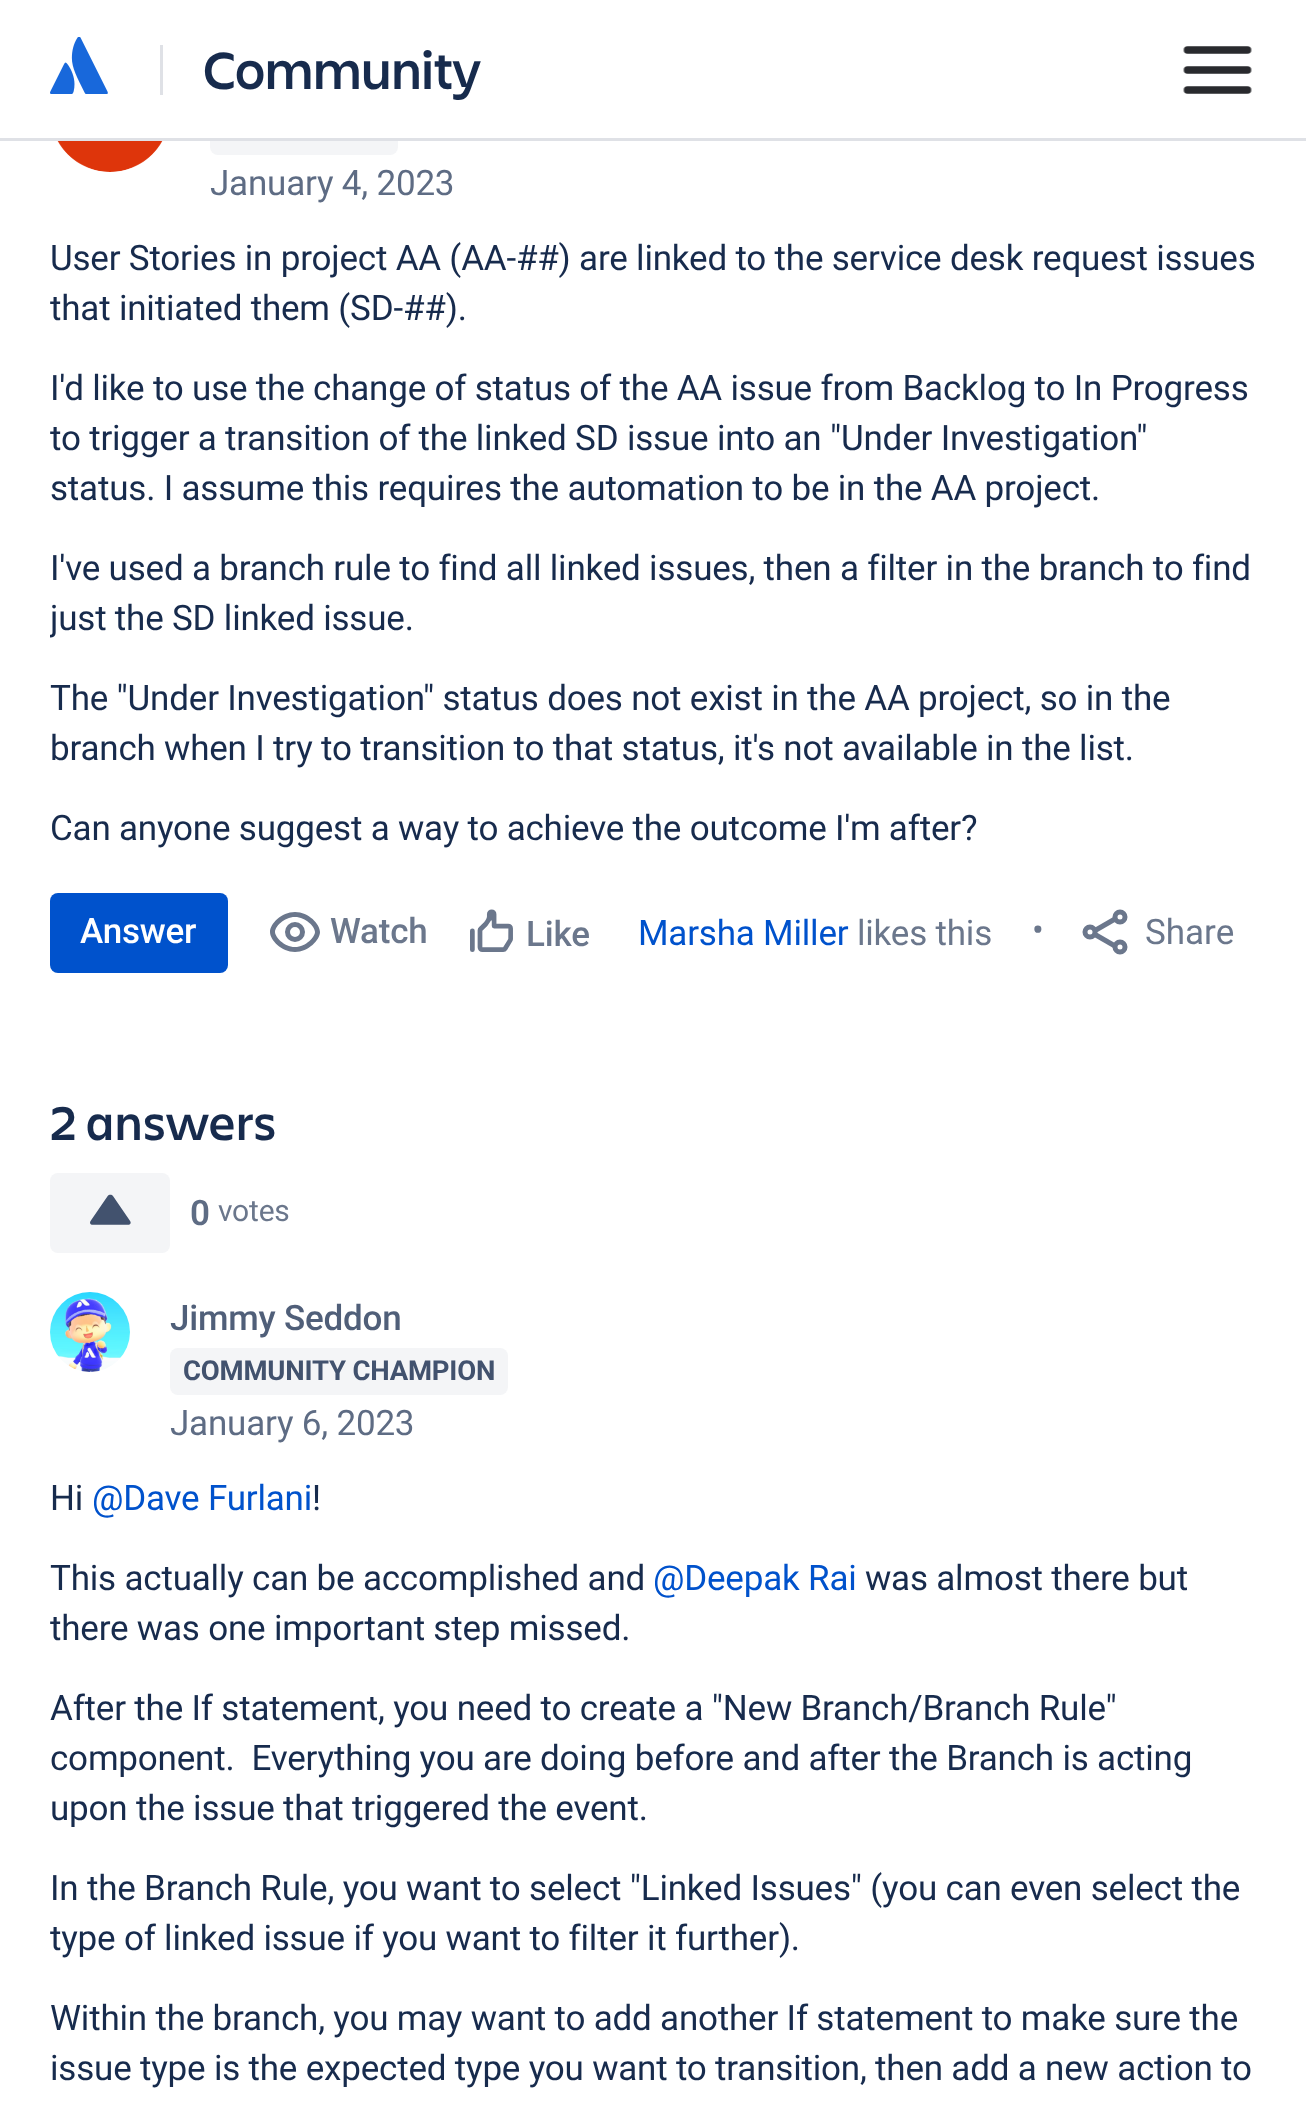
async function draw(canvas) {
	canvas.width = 1306;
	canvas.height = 2111;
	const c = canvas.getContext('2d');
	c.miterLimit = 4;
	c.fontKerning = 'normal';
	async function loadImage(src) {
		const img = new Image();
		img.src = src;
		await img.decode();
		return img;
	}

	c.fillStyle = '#fff';
	c.fillRect(0, 0, 1306, 2111);
	c.fillStyle = '#f4f5f7';
	c.beginPath();
	c.roundRect(210, 108, 188, 47, 8);
	c.fill();
	c.fillStyle = '#fff';
	c.fillRect(210, 108, 188, 30);
	c.fillStyle = '#dfe1e6';
	c.fillRect(0, 138, 1306, 3);
	c.drawImage(await loadImage('img1.png'), 50, 37, 58, 57);
	c.fillRect(160, 45, 3, 50);
	c.letterSpacing = '-0.2px';
	c.font = '600 55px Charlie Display';
	c.fillStyle = '#172b4d';
	c.fillText('Community', 203, 89);
	c.drawImage(await loadImage('img2.png'), 1183, 46, 69, 48);
	c.drawImage(await loadImage('img3.png'), 57, 141, 106, 31);
	c.font = '35px Roboto';
	c.fillStyle = '#5e6c84';
	c.fillText('January 4, 2023', 210, 195);
	c.fillStyle = '#172b4d';
	for (const [text, x, y] of [
		['User Stories in project AA (AA-##) are linked to the service desk request issues', 50, 270],
		['that initiated them (SD-##).', 50, 320],
		['I\'d like to use the change of status of the AA issue from Backlog to In Progress', 50, 400],
		['to trigger a transition of the linked SD issue into an "Under Investigation"', 50, 450],
		['status. I assume this requires the automation to be in the AA project.', 50, 500],
		['I\'ve used a branch rule to find all linked issues, then a filter in the branch to find', 50, 580],
	]) {
		c.fillText(text, x, y);
	}
	c.save();
	c.beginPath();
	c.rect(50, 233, 1208, 620);
	c.clip();
	c.fillText('just the SD linked issue.', 50, 630);
	c.restore();
	for (const [text, x, y] of [
		['The "Under Investigation" status does not exist in the AA project, so in the', 50, 710],
		['branch when I try to transition to that status, it\'s not available in the list.', 50, 760],
		['Can anyone suggest a way to achieve the outcome I\'m after?', 50, 840],
	]) {
		c.fillText(text, x, y);
	}
	c.fillStyle = '#0052cc';
	c.beginPath();
	c.roundRect(50, 893, 178, 80, 8);
	c.fill();
	c.font = '500 35px Roboto';
	c.fillStyle = '#fff';
	c.fillText('Answer', 80, 943);
	c.drawImage(await loadImage('img4.png'), 270, 912, 50, 40);
	c.fillStyle = '#6b778c';
	c.fillText('Watch', 330, 943);
	c.drawImage(await loadImage('img5.png'), 470, 909, 43, 43);
	c.fillText('Like', 526, 946);
	c.font = '35px Roboto';
	c.fillStyle = '#0052cc';
	c.fillText('Marsha Miller', 638, 945);
	c.fillStyle = '#6b778c';
	c.fillText('likes this', 857, 945);
	c.fillText('•', 1032, 942);
	c.drawImage(await loadImage('img6.png'), 1082, 909, 46, 46);
	c.letterSpacing = '0px';
	c.fillText('Share', 1145, 944);
	c.letterSpacing = '0.75px';
	c.font = '600 50px Charlie Display';
	c.fillStyle = '#172b4d';
	c.fillText('2 answers', 50, 1140);
	c.fillStyle = '#f4f5f7';
	c.beginPath();
	c.roundRect(50, 1173, 120, 80, 8);
	c.fill();
	c.drawImage(await loadImage('img7.png'), 90, 1194, 41, 31);
	c.letterSpacing = '-0.2px';
	c.font = '600 35px Roboto';
	c.fillStyle = '#5e6c84';
	c.fillText('0', 190, 1225);
	c.font = '30px Roboto';
	c.fillStyle = '#6b778c';
	c.fillText('votes', 218, 1221);
	c.drawImage(await loadImage('img8.png'), 50, 1292, 80, 80);
	c.font = '500 35px Roboto';
	c.fillStyle = '#505f79';
	c.fillText('Jimmy Seddon', 170, 1330);
	c.fillStyle = '#f4f5f7';
	c.beginPath();
	c.roundRect(170, 1348, 338, 47, 8);
	c.fill();
	c.font = 'bold 27.5px Roboto';
	c.fillStyle = '#42526e';
	c.fillText('COMMUNITY CHAMPION', 183, 1380);
	c.font = '35px Roboto';
	c.fillStyle = '#5e6c84';
	c.fillText('January 6, 2023', 170, 1435);
	c.fillStyle = '#172b4d';
	c.fillText('Hi', 50, 1510);
	c.fillStyle = '#0052cc';
	c.fillText('@Dave Furlani', 92, 1510);
	c.fillStyle = '#172b4d';
	c.fillText('!', 312, 1510);
	c.fillText('This actually can be accomplished and', 50, 1590);
	c.fillStyle = '#0052cc';
	c.fillText('@Deepak Rai', 653, 1590);
	c.fillStyle = '#172b4d';
	for (const [text, x, y] of [
		['was almost there but', 865, 1590],
		['there was one important step missed.', 50, 1640],
		['After the If statement, you need to create a "New Branch/Branch Rule"', 50, 1720],
		['component.  Everything you are doing before and after the Branch is acting', 50, 1770],
		['upon the issue that triggered the event.', 50, 1820],
		['In the Branch Rule, you want to select "Linked Issues" (you can even select the', 50, 1900],
		['type of linked issue if you want to filter it further).', 50, 1950],
		['Within the branch, you may want to add another If statement to make sure the', 50, 2030],
		['issue type is the expected type you want to transition, then add a new action to', 50, 2080],
	]) {
		c.fillText(text, x, y);
	}
}

draw(document.querySelector('canvas'));
